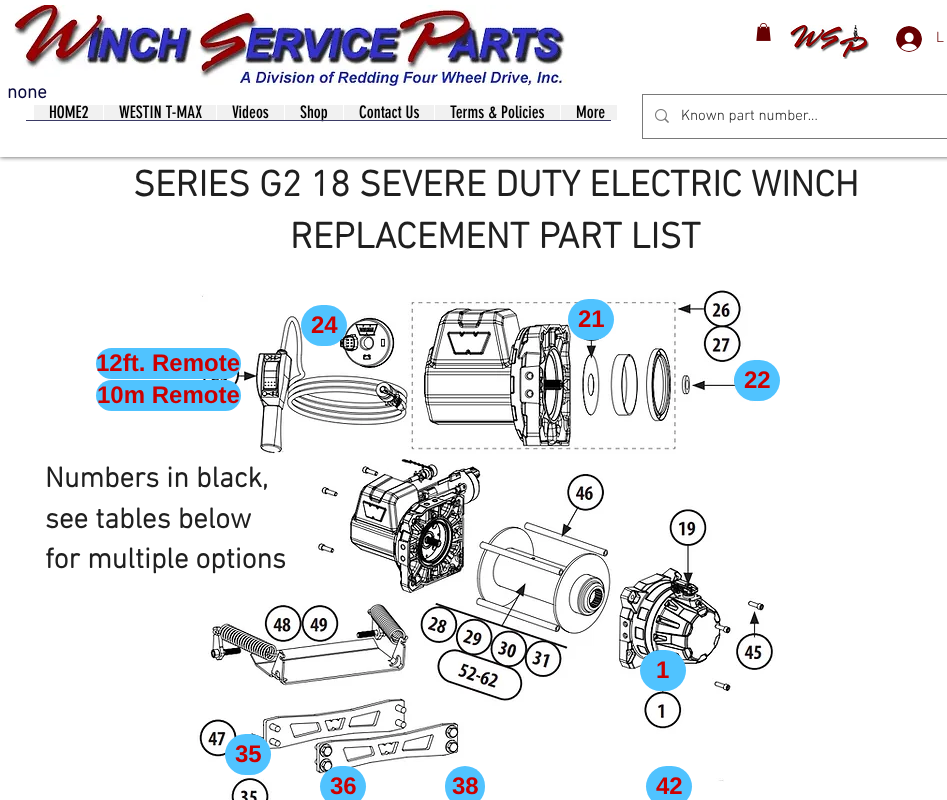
async function draw(canvas) {
	canvas.width = 947;
	canvas.height = 800;
	const c = canvas.getContext('2d');
	c.miterLimit = 4;
	c.fontKerning = 'normal';
	async function loadImage(src) {
		const img = new Image();
		img.src = src;
		await img.decode();
		return img;
	}

	c.fillStyle = '#fff';
	c.fillRect(0, 0, 947, 800);
	c.save();
	c.beginPath();
	c.rect(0, 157, 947, 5);
	c.clip();
	c.fillStyle = '#000000b3';
	c.filter = 'blur(2.5px)';
	c.beginPath();
	c.rect(0, 0, 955, 157);
	c.fill();
	c.filter = 'none';
	c.restore();
	c.drawImage(await loadImage('img1.png'), 13, 5, 554, 81);
	c.font = 'bold 19px "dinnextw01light"';
	c.fillStyle = '#0a093e';
	c.fillText('none', 7, 98);
	c.fillStyle = '#f1f1f1';
	c.fillRect(34, 105, 583, 15);
	c.font = '17px "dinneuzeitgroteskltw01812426"';
	c.fillStyle = '#000';
	c.fillText('HOME2', 49, 118);
	c.fillStyle = '#fff';
	c.fillRect(103, 105, 1, 15);
	c.fillStyle = '#000';
	c.fillText('WESTIN T-MAX', 119, 118);
	c.fillStyle = '#fff';
	c.fillRect(216, 105, 1, 15);
	c.fillStyle = '#000';
	c.fillText('Videos', 232, 118);
	c.fillStyle = '#fff';
	c.fillRect(284, 105, 1, 15);
	c.fillStyle = '#000';
	c.fillText('Shop', 300, 118);
	c.fillStyle = '#fff';
	c.fillRect(343, 105, 1, 15);
	c.fillStyle = '#000';
	c.fillText('Contact Us', 359, 118);
	c.fillStyle = '#fff';
	c.fillRect(434, 105, 1, 15);
	c.fillStyle = '#000';
	c.fillText('Terms & Policies', 450, 118);
	c.fillStyle = '#fff';
	c.fillRect(560, 105, 1, 15);
	c.fillStyle = '#000';
	c.fillText('More', 576, 118);
	c.fillStyle = '#3a3a65';
	c.fillRect(26, 120, 585, 1);
	c.drawImage(await loadImage('img2.png'), 756, 23, 15, 18);
	c.drawImage(await loadImage('img3.png'), 790, 25, 79, 34);
	c.drawImage(await loadImage('img4.png'), 896, 26, 26, 26);
	c.font = '300 15px "dinnextw01light"';
	c.fillStyle = '#670001';
	c.fillText('L', 936, 42);
	c.strokeStyle = '#797979';
	c.strokeRect(642.5, 94.5, 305, 44);
	c.drawImage(await loadImage('img5.png'), 655, 109, 14, 14);
	c.fillStyle = '#1f1f1f';
	c.fillText('Known part number...', 681, 120);
	c.font = 'bold 37px "dinnextw01light"';
	c.fillText('SERIES G2 18 SEVERE DUTY ELECTRIC WINCH', 133, 196);
	c.fillText('REPLACEMENT PART LIST', 290, 248);
	c.drawImage(await loadImage('img6.png'), 197, 290, 579, 510);
	c.fillStyle = '#50c3ff';
	c.beginPath();
	c.roundRect(301, 305, 46, 41, 20.5);
	c.fill();
	c.font = 'bold 24px Liberation Sans';
	c.fillStyle = '#c00';
	c.fillText('24', 311, 333);
	c.fillStyle = '#50c3ff';
	c.beginPath();
	c.roundRect(568, 299, 46, 41, 20.5);
	c.fill();
	c.fillStyle = '#c00';
	c.fillText('21', 578, 327);
	c.fillStyle = '#50c3ff';
	c.beginPath();
	c.roundRect(96, 348, 145, 31, 15.5);
	c.fill();
	c.fillStyle = '#c00';
	c.fillText('12ft. Remote', 96, 371);
	c.fillStyle = '#50c3ff';
	c.beginPath();
	c.roundRect(734, 360, 46, 41, 20.5);
	c.fill();
	c.fillStyle = '#c00';
	c.fillText('22', 744, 388);
	c.fillStyle = '#50c3ff';
	c.beginPath();
	c.roundRect(96, 380, 145, 31, 15.5);
	c.fill();
	c.fillStyle = '#c00';
	c.fillText('10m Remote', 97, 403);
	c.font = 'bold 29px "dinnextw01light"';
	c.fillStyle = '#1f1f1f';
	for (const [text, x, y] of [
		['Numbers in black,', 45, 487],
		['see tables below', 45, 528],
		['for multiple options', 45, 568],
	]) {
		c.fillText(text, x, y);
	}
	c.fillStyle = '#50c3ff';
	c.beginPath();
	c.roundRect(640, 650, 46, 41, 20.5);
	c.fill();
	c.font = 'bold 24px Liberation Sans';
	c.fillStyle = '#c00';
	c.fillText('1', 656, 678);
	c.fillStyle = '#50c3ff';
	c.beginPath();
	c.roundRect(225, 734, 46, 41, 20.5);
	c.fill();
	c.fillStyle = '#c00';
	c.fillText('35', 235, 762);
	c.fillStyle = '#50c3ff';
	c.beginPath();
	c.roundRect(320, 766, 46, 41, 20.5);
	c.fill();
	c.fillStyle = '#c00';
	c.fillText('36', 330, 794);
	c.fillStyle = '#50c3ff';
	c.beginPath();
	c.roundRect(445, 766, 40, 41, 20);
	c.fill();
	c.fillStyle = '#c00';
	c.fillText('38', 452, 794);
	c.fillStyle = '#50c3ff';
	c.beginPath();
	c.roundRect(646, 766, 46, 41, 20.5);
	c.fill();
	c.fillStyle = '#c00';
	c.fillText('42', 656, 794);
}

draw(document.querySelector('canvas'));
